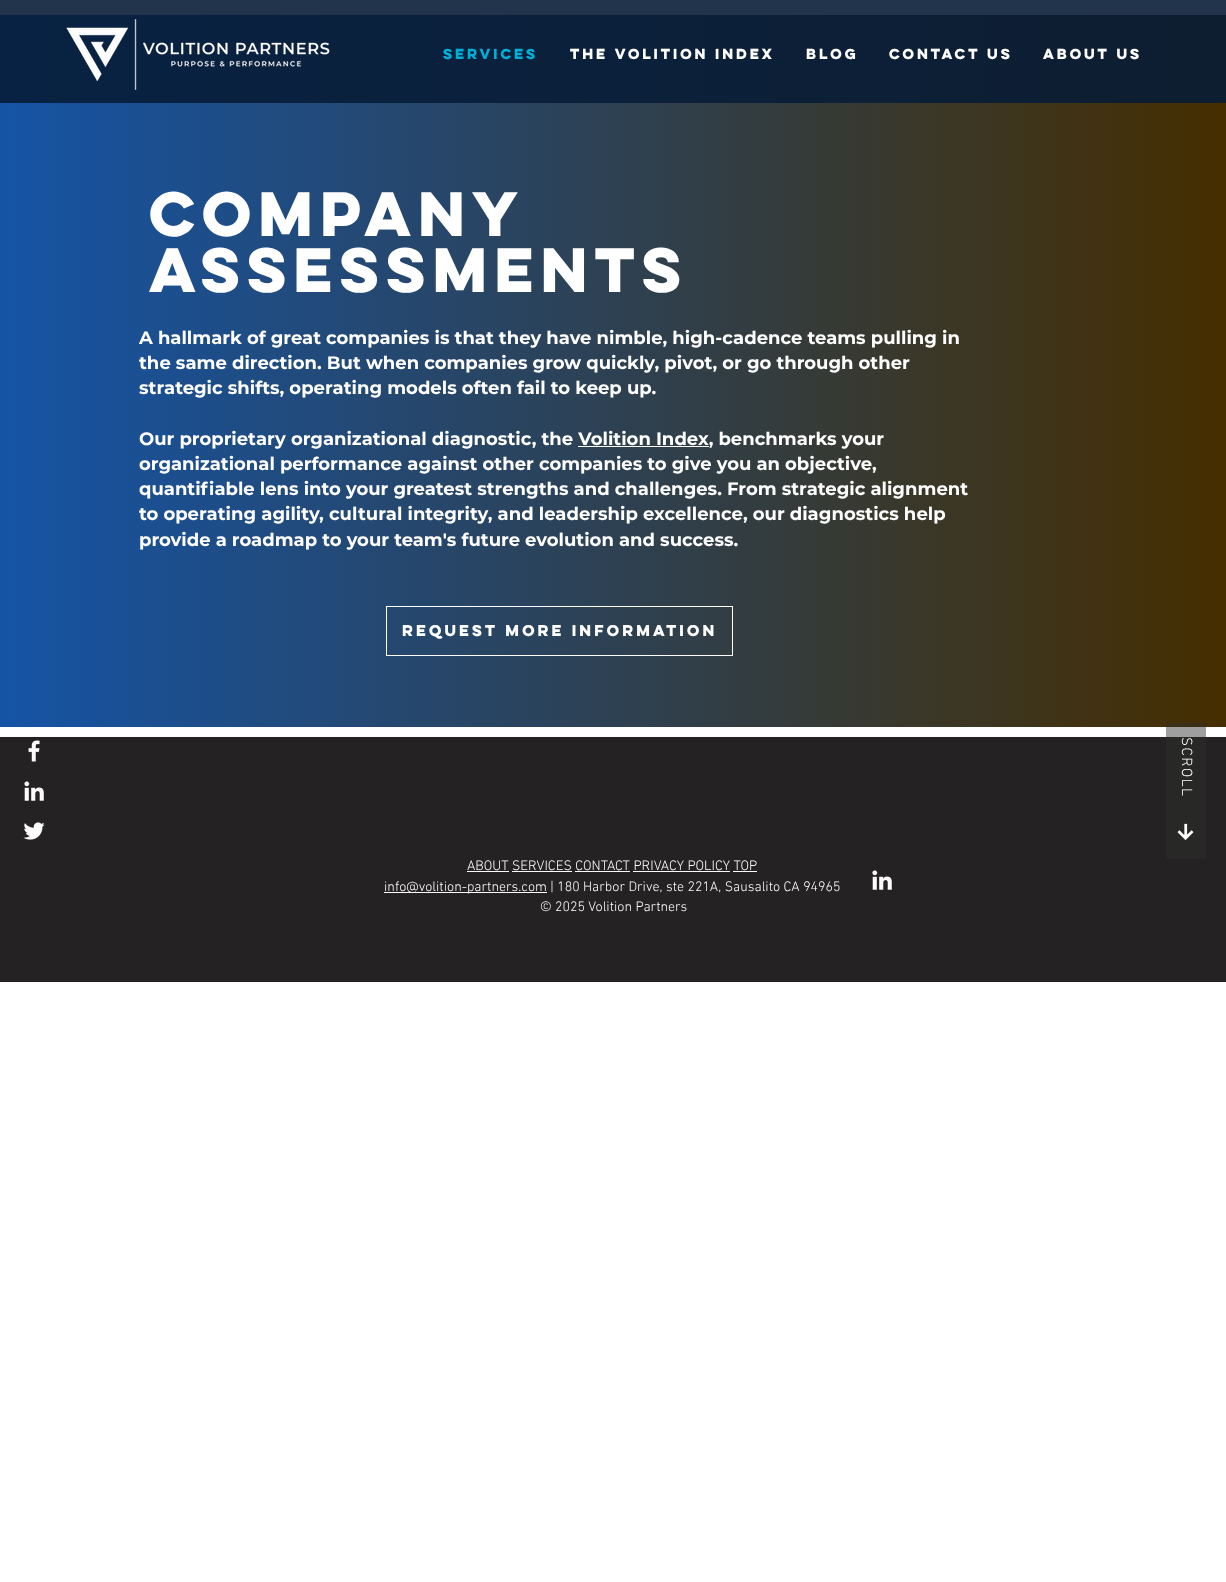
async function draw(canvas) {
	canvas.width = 1226;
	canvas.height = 1582;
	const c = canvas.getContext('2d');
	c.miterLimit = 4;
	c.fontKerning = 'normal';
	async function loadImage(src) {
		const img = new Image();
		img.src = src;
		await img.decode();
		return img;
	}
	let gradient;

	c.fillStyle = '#fff';
	c.fillRect(0, 0, 1226, 1582);
	c.fillStyle = '#9e9f9e';
	c.fillRect(1166, 727, 40, 10);
	c.fillStyle = '#21344c';
	c.fillRect(0, 0, 1226, 15);
	gradient = c.createLinearGradient(0, 371, 1226, 371);
	gradient.addColorStop(0, '#082243');
	gradient.addColorStop(1, '#0e1e31');
	c.fillStyle = gradient;
	c.fillRect(0, 15, 1226, 88);
	c.drawImage(await loadImage('img1.png'), 66, 19, 264, 71);
	c.font = 'bold 13px "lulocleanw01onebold"';
	c.fillStyle = '#00afd8';
	c.fillText('Services', 443, 59);
	c.fillStyle = '#fff';
	for (const [text, x, y] of [
		['The Volition Index', 570, 59],
		['Blog', 806, 59],
		['CONTACT US', 889, 59],
		['ABOUT US', 1043, 59],
	]) {
		c.fillText(text, x, y);
	}
	gradient = c.createLinearGradient(0, 371, 1226, 371);
	gradient.addColorStop(0, '#1554a5');
	gradient.addColorStop(1, '#462e00');
	c.fillStyle = gradient;
	c.fillRect(0, 103, 1226, 624);
	gradient = c.createLinearGradient(0, 371, 1226, 371);
	gradient.addColorStop(0, '#20436e');
	gradient.addColorStop(1, '#3b2e15');
	c.fillStyle = gradient;
	c.fillRect(1166, 723, 40, 4);
	c.letterSpacing = '-5.6px';
	c.font = 'bold 56px "lulocleanw01onebold"';
	c.fillStyle = '#fff';
	c.fillText('Company', 149, 236);
	c.fillText('Assessments', 149, 292);
	c.letterSpacing = '0px';
	c.font = 'bold 18px Montserrat';
	for (const [text, x, y] of [
		['A hallmark of great companies is that they have nimble, high-cadence teams pulling in', 139, 344],
		['the same direction. But when companies grow quickly, pivot, or go through other', 139, 369],
		['strategic shifts, operating models often fail to keep up.', 139, 394],
		['Our proprietary organizational diagnostic, the Volition Index, benchmarks your', 139, 445],
	]) {
		c.fillText(text, x, y);
	}
	c.fillRect(578, 446, 131, 1);
	for (const [text, x, y] of [
		['organizational performance against other companies to give you an objective,', 139, 470],
		['quantifiable lens into your greatest strengths and challenges. From strategic alignment', 139, 495],
		['to operating agility, cultural integrity, and leadership excellence, our diagnostics help', 139, 520],
		['provide a roadmap to your team\'s future evolution and success.', 139, 546],
	]) {
		c.fillText(text, x, y);
	}
	c.strokeStyle = '#fff';
	c.strokeRect(386.5, 606.5, 346, 49);
	c.font = 'bold 14px "lulocleanw01onebold"';
	c.fillText('Request More Information', 402, 636);
	c.fillStyle = '#242222';
	c.fillRect(0, 737, 1226, 245);
	c.drawImage(await loadImage('img2.png'), 28, 740, 12, 22);
	c.drawImage(await loadImage('img3.png'), 24, 781, 20, 20);
	c.drawImage(await loadImage('img4.png'), 23, 822, 22, 18);
	c.fillStyle = '#282827';
	c.fillRect(1166, 737, 40, 122);
	c.letterSpacing = '1.5px';
	c.font = '300 15px "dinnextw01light"';
	c.fillStyle = '#fff';
	c.save();
	c.translate(1182, 737);
	c.rotate(90 * Math.PI / 180);
	c.fillText('SCROLL', 0, 0);
	c.restore();
	c.drawImage(await loadImage('img5.png'), 1177, 823, 17, 17);
	c.letterSpacing = '0px';
	c.font = '300 14px "dinnextw01light"';
	c.fillText('ABOUT SERVICES CONTACT PRIVACY POLICY TOP', 467, 870);
	for (const [x, y, w, h, color] of [
		[467, 871, 42, 1, '#fff'],
		[512, 871, 60, 1, '#fff'],
		[575, 871, 55, 1, '#fff'],
		[633, 871, 97, 1, '#fff'],
		[733, 871, 24, 1, '#fff'],
		[384, 892, 163, 1, '#fff'],
	]) {
		c.fillStyle = color;
		c.fillRect(x, y, w, h);
	}
	c.fillText('info@volition-partners.com | 180 Harbor Drive, ste 221A, Sausalito CA 94965', 384, 891);
	c.fillText('© 2025 Volition Partners', 540, 911);
	c.drawImage(await loadImage('img3.png'), 872, 870, 20, 20);
}

draw(document.querySelector('canvas'));
